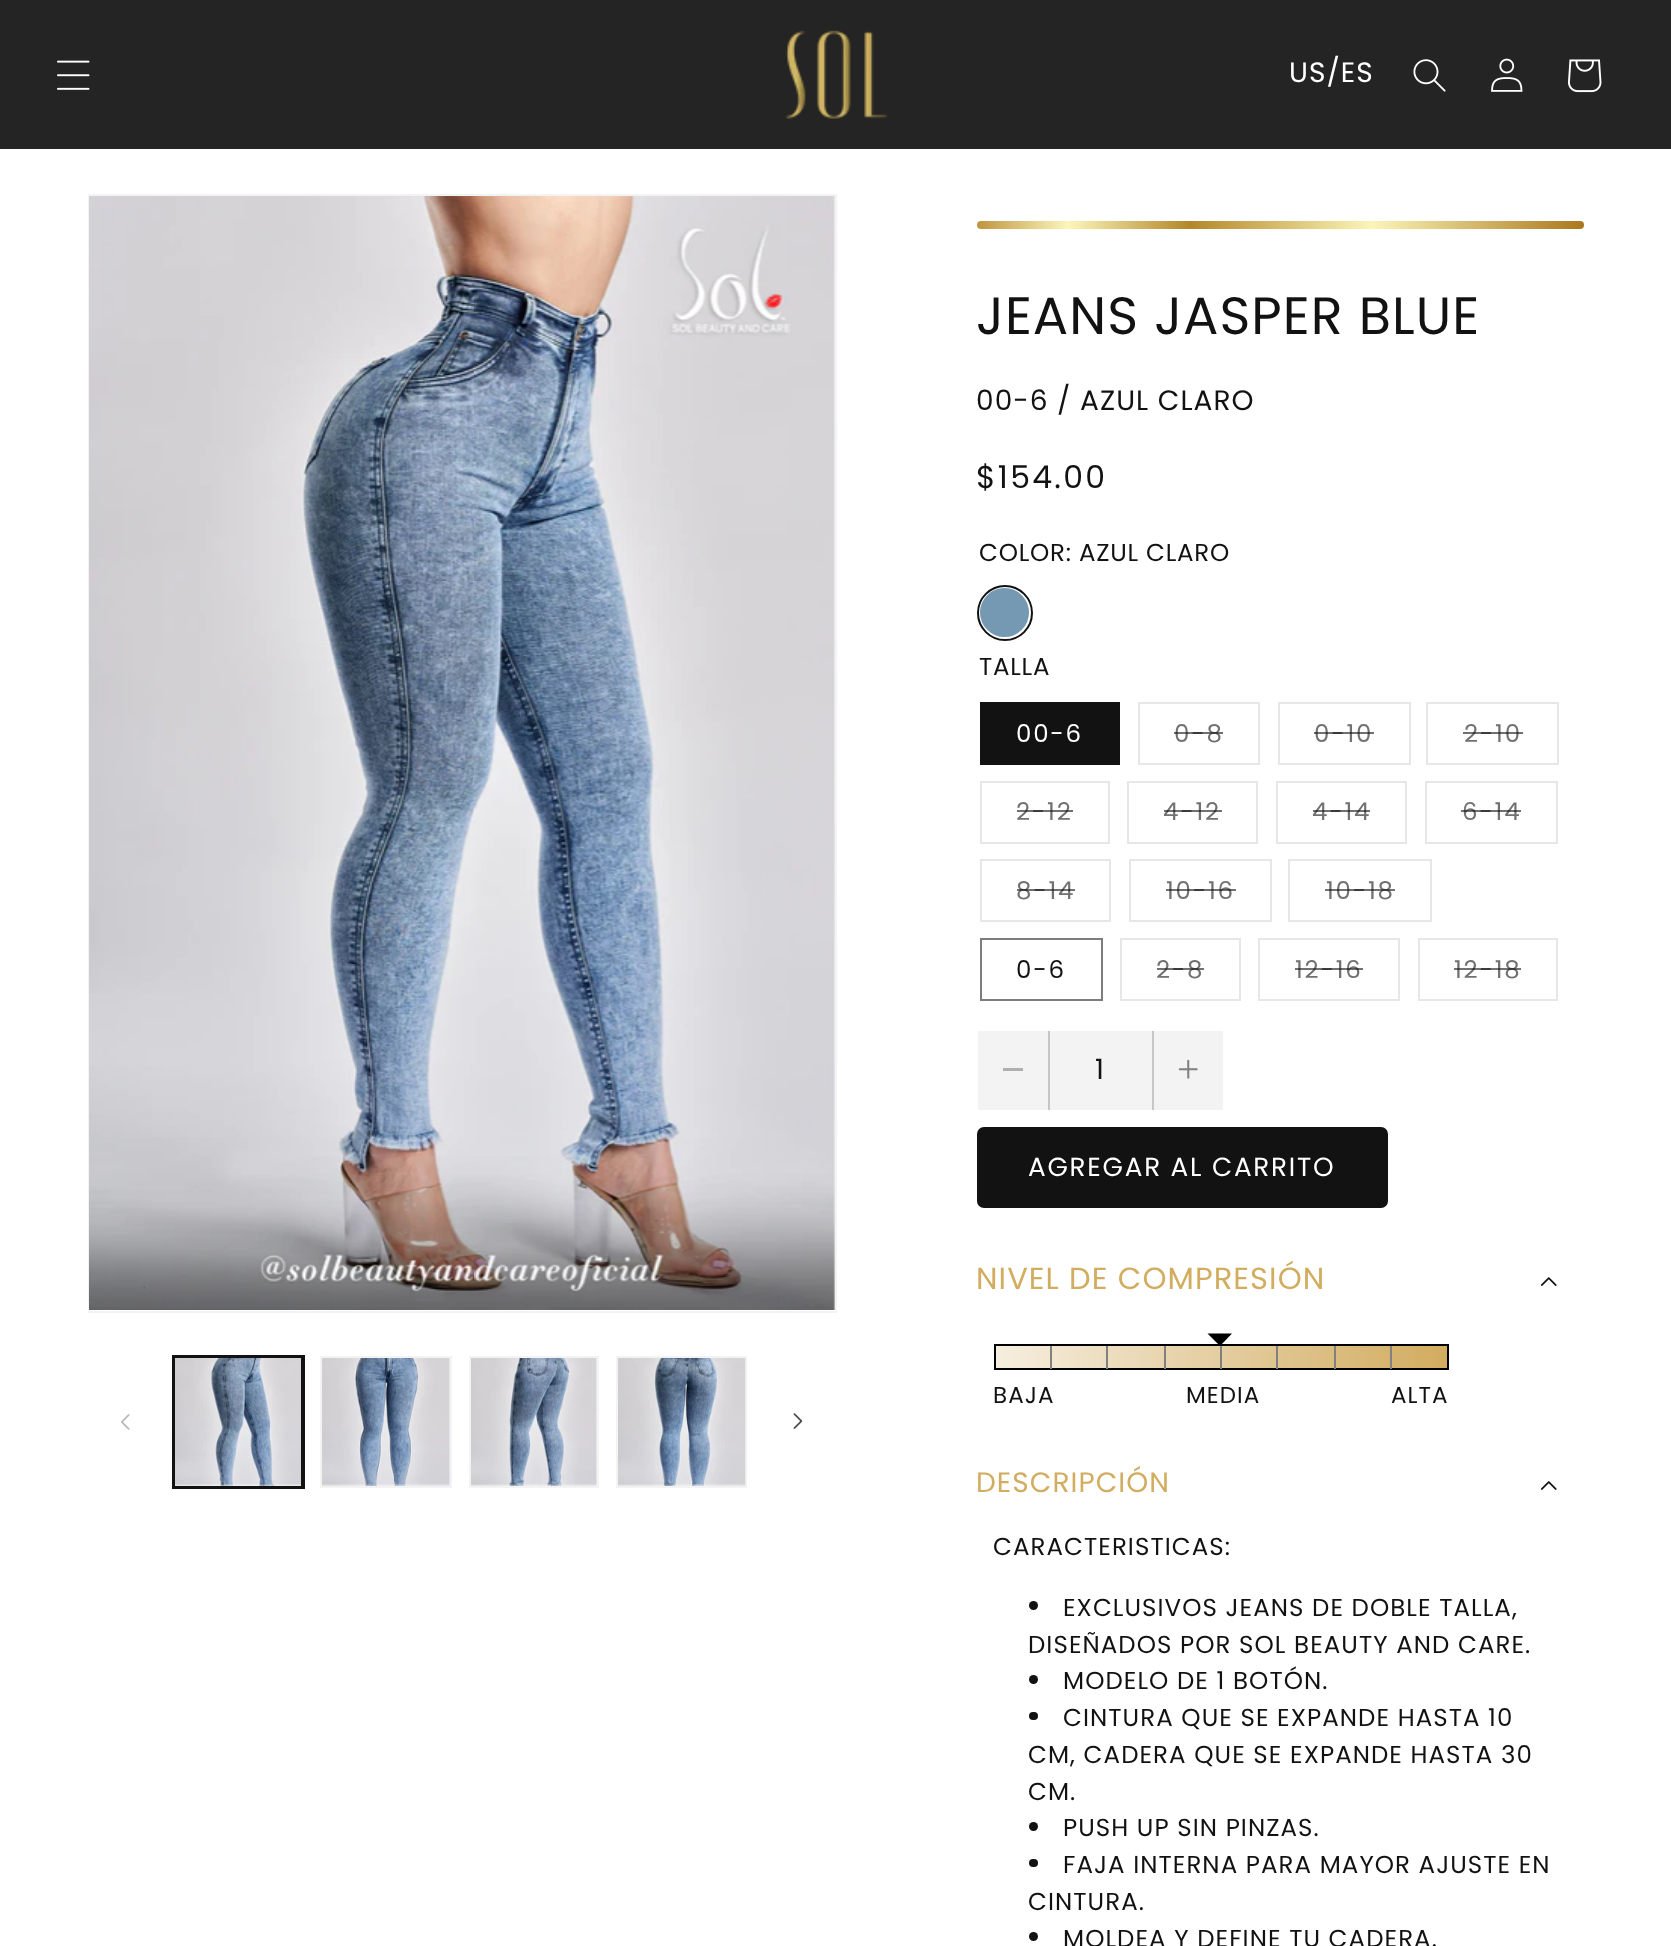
async function draw(canvas) {
	canvas.width = 1671;
	canvas.height = 1946;
	const c = canvas.getContext('2d');
	c.miterLimit = 4;
	c.fontKerning = 'normal';
	async function loadImage(src) {
		const img = new Image();
		img.src = src;
		await img.decode();
		return img;
	}
	let gradient;

	c.fillStyle = '#fff';
	c.fillRect(0, 0, 1671, 1946);
	for (const [x, y, w, h, color] of [
		[1154, 1031, 69, 79, '#f3f3f3'],
		[1153, 1031, 1, 79, '#c7c7c7'],
		[0, 0, 1671, 149, '#242424'],
	]) {
		c.fillStyle = color;
		c.fillRect(x, y, w, h);
	}
	c.drawImage(await loadImage('img1.png'), 57, 60, 33, 30);
	c.drawImage(await loadImage('img2.png'), 785, 30, 103, 89);
	c.letterSpacing = '1.05px';
	c.font = '28px Poppins';
	c.fillStyle = '#fff';
	c.fillText('US/ES', 1289, 82);
	c.drawImage(await loadImage('img3.png'), 1413, 59, 33, 33);
	c.drawImage(await loadImage('img4.png'), 1491, 58, 32, 34);
	c.drawImage(await loadImage('img5.png'), 1568, 59, 34, 34);
	c.strokeStyle = '#f3f3f3';
	c.lineWidth = 2;
	c.strokeRect(89, 195, 747, 1117);
	c.drawImage(await loadImage('img6.png'), 89, 196, 746, 1114);
	c.drawImage(await loadImage('img7.png'), 121, 1414, 9, 16);
	c.strokeStyle = '#121212';
	c.strokeRect(173, 1356, 131, 132);
	c.strokeRect(174, 1357, 128, 130);
	c.drawImage(await loadImage('img8.png'), 175, 1358, 126, 128);
	c.strokeStyle = '#f3f3f3';
	c.strokeRect(321, 1357, 130, 130);
	c.drawImage(await loadImage('img9.png'), 322, 1358, 128, 128);
	c.strokeRect(470, 1357, 128, 130);
	c.drawImage(await loadImage('img10.png'), 471, 1358, 126, 128);
	c.strokeRect(617, 1357, 129, 130);
	c.drawImage(await loadImage('img11.png'), 618, 1358, 128, 128);
	c.drawImage(await loadImage('img12.png'), 793, 1413, 10, 16);
	gradient = c.createLinearGradient(977, 225, 1584, 225);
	gradient.addColorStop(0, '#bf953f');
	gradient.addColorStop(0.15, '#fcf6ba');
	gradient.addColorStop(0.35, '#b38728');
	gradient.addColorStop(0.65, '#fbf5b7');
	gradient.addColorStop(1, '#aa771c');
	c.fillStyle = gradient;
	c.beginPath();
	c.roundRect(977, 221, 607, 8, 4);
	c.fill();
	c.font = '52.5px Poppins';
	c.fillStyle = '#121212';
	c.fillText('JEANS JASPER BLUE', 976, 334);
	c.font = '28px Poppins';
	c.fillText('00-6 / AZUL CLARO', 976, 410);
	c.letterSpacing = '2.25px';
	c.font = '31.5px Poppins';
	c.fillText('$154.00', 976, 488);
	c.letterSpacing = '0.75px';
	c.font = '24.5px Poppins';
	c.fillText('COLOR: AZUL CLARO', 979, 561);
	c.fillStyle = '#7598b3';
	c.beginPath();
	c.arc(1004.5, 612.5, 24.5, 0, 2 * Math.PI);
	c.fill();
	c.beginPath();
	c.arc(1005, 613, 27, 0, 2 * Math.PI);
	c.strokeStyle = '#121212';
	c.stroke();
	c.fillStyle = '#121212';
	c.fillText('TALLA', 979, 675);
	c.fillRect(980, 702, 140, 63);
	c.letterSpacing = '1.75px';
	c.fillStyle = '#fff';
	c.fillText('00-6', 1016, 742);
	c.strokeStyle = '#e7e7e7';
	c.strokeRect(1139, 703, 120, 61);
	c.fillStyle = '#717171';
	c.fillText('0-8', 1174, 742);
	c.fillStyle = '#12121299';
	c.fillRect(1174, 732, 49, 2);
	c.strokeRect(1279, 703, 131, 61);
	c.fillStyle = '#717171';
	c.fillText('0-10', 1314, 742);
	c.fillStyle = '#12121299';
	c.fillRect(1314, 732, 60, 2);
	c.strokeRect(1427, 703, 131, 61);
	c.fillStyle = '#717171';
	c.fillText('2-10', 1464, 742);
	c.fillStyle = '#12121299';
	c.fillRect(1463, 732, 60, 2);
	c.strokeRect(981, 782, 128, 61);
	c.fillStyle = '#717171';
	c.fillText('2-12', 1016, 820);
	c.fillStyle = '#12121299';
	c.fillRect(1017, 810, 56, 2);
	c.strokeRect(1128, 782, 129, 61);
	c.fillStyle = '#717171';
	c.fillText('4-12', 1163, 820);
	c.fillStyle = '#12121299';
	c.fillRect(1164, 810, 58, 2);
	c.strokeRect(1277, 782, 129, 61);
	c.fillStyle = '#717171';
	c.fillText('4-14', 1312, 820);
	c.fillStyle = '#12121299';
	c.fillRect(1313, 810, 57, 2);
	c.strokeRect(1426, 782, 131, 61);
	c.fillStyle = '#717171';
	c.fillText('6-14', 1462, 820);
	c.fillStyle = '#12121299';
	c.fillRect(1461, 810, 60, 2);
	c.strokeRect(981, 860, 129, 61);
	c.fillStyle = '#717171';
	c.fillText('8-14', 1016, 899);
	c.fillStyle = '#12121299';
	c.fillRect(1017, 889, 58, 2);
	c.strokeRect(1130, 860, 141, 61);
	c.fillStyle = '#717171';
	c.fillText('10-16', 1166, 899);
	c.fillStyle = '#12121299';
	c.fillRect(1166, 889, 70, 2);
	c.strokeRect(1289, 860, 142, 61);
	c.fillStyle = '#717171';
	c.fillText('10-18', 1326, 899);
	c.fillStyle = '#12121299';
	c.fillRect(1325, 889, 70, 2);
	c.strokeStyle = '#7d7d7d';
	c.strokeRect(981, 939, 121, 61);
	c.fillStyle = '#121212';
	c.fillText('0-6', 1016, 978);
	c.strokeStyle = '#e7e7e7';
	c.strokeRect(1121, 939, 119, 61);
	c.fillStyle = '#717171';
	c.fillText('2-8', 1156, 978);
	c.fillStyle = '#12121299';
	c.fillRect(1157, 968, 47, 2);
	c.strokeRect(1259, 939, 140, 61);
	c.fillStyle = '#717171';
	c.fillText('12-16', 1295, 978);
	c.fillStyle = '#12121299';
	c.fillRect(1295, 968, 68, 2);
	c.strokeRect(1419, 939, 138, 61);
	c.fillStyle = '#717171';
	c.fillText('12-18', 1454, 978);
	for (const [x, y, w, h, color] of [
		[1454, 968, 67, 2, '#12121299'],
		[978, 1031, 70, 79, '#f3f3f3'],
		[1003, 1068, 20, 3, '#afafaf'],
		[1050, 1031, 102, 79, '#f3f3f3'],
		[1152, 1031, 1, 79, '#c6c6c6'],
		[1048, 1031, 2, 79, '#c6c6c6'],
	]) {
		c.fillStyle = color;
		c.fillRect(x, y, w, h);
	}
	c.letterSpacing = '0px';
	c.font = '28px Poppins';
	c.fillStyle = '#121212';
	c.fillText('1', 1095, 1079);
	c.drawImage(await loadImage('img13.png'), 1178, 1059, 20, 20);
	c.beginPath();
	c.roundRect(977, 1127, 411, 81, 7);
	c.fill();
	c.letterSpacing = '1.75px';
	c.font = '26.25px Poppins';
	c.fillStyle = '#fff';
	c.fillText('AGREGAR AL CARRITO', 1028, 1176);
	c.letterSpacing = '1.05px';
	c.font = '30.6px Poppins';
	c.fillStyle = '#d2ac5f';
	c.fillText('NIVEL DE COMPRESIÓN', 976, 1289);
	c.drawImage(await loadImage('img14.png'), 1540, 1277, 17, 9);
	gradient = c.createLinearGradient(996, 1357, 1447, 1357);
	gradient.addColorStop(0, '#f6eedf');
	gradient.addColorStop(1, '#d2ac5f');
	c.fillStyle = gradient;
	c.fillRect(996, 1346, 451, 22);
	c.strokeStyle = '#000';
	c.strokeRect(995, 1345, 453, 24);
	for (const [x, y, w, h, color] of [
		[1050, 1346, 2, 23, '#808080'],
		[1106, 1346, 2, 23, '#808080'],
		[1164, 1346, 2, 23, '#808080'],
		[1220, 1346, 2, 23, '#808080'],
	]) {
		c.fillStyle = color;
		c.fillRect(x, y, w, h);
	}
	c.fillStyle = '#000';
	c.beginPath();
	c.moveTo(1207.5, 1333.5);
	c.lineTo(1232, 1333.5);
	c.lineTo(1220, 1346);
	c.closePath();
	c.fill();
	for (const [x, y, w, h, color] of [
		[1276, 1346, 2, 23, '#808080'],
		[1334, 1346, 2, 23, '#808080'],
		[1390, 1346, 2, 23, '#808080'],
	]) {
		c.fillStyle = color;
		c.fillRect(x, y, w, h);
	}
	c.font = '23px Poppins';
	c.fillStyle = '#121212';
	for (const [text, x, y] of [
		['BAJA', 993, 1403],
		['MEDIA', 1186, 1403],
		['ALTA', 1391, 1403],
	]) {
		c.fillText(text, x, y);
	}
	c.font = '28px Poppins';
	c.fillStyle = '#d2ac5f';
	c.fillText('DESCRIPCIÓN', 976, 1492);
	c.drawImage(await loadImage('img15.png'), 1540, 1481, 17, 9);
	c.font = '24.5px Poppins';
	c.fillStyle = '#121212';
	c.fillText('CARACTERISTICAS:', 993, 1555);
	c.beginPath();
	c.arc(1033.5, 1605.5, 4.5, 0, 2 * Math.PI);
	c.fill();
	c.fillText('EXCLUSIVOS JEANS DE DOBLE TALLA,', 1063, 1616);
	c.fillText('DISEÑADOS POR SOL BEAUTY AND CARE.', 1028, 1653);
	c.beginPath();
	c.arc(1033.5, 1679.5, 4.5, 0, 2 * Math.PI);
	c.fill();
	c.fillText('MODELO DE 1 BOTÓN.', 1063, 1689);
	c.beginPath();
	c.roundRect(1029, 1712, 9, 8, 4);
	c.fill();
	for (const [text, x, y] of [
		['CINTURA QUE SE EXPANDE HASTA 10', 1063, 1726],
		['CM, CADERA QUE SE EXPANDE HASTA 30', 1028, 1763],
		['CM.', 1028, 1800],
	]) {
		c.fillText(text, x, y);
	}
	c.beginPath();
	c.arc(1033.5, 1826.5, 4.5, 0, 2 * Math.PI);
	c.fill();
	c.fillText('PUSH UP SIN PINZAS.', 1063, 1836);
	c.beginPath();
	c.roundRect(1029, 1859, 9, 8, 4);
	c.fill();
	c.fillText('FAJA INTERNA PARA MAYOR AJUSTE EN', 1063, 1873);
	c.fillText('CINTURA.', 1028, 1910);
	c.beginPath();
	c.arc(1033.5, 1936.5, 4.5, 0, 2 * Math.PI);
	c.fill();
	c.fillText('MOLDEA Y DEFINE TU CADERA.', 1063, 1947);
}

draw(document.querySelector('canvas'));
